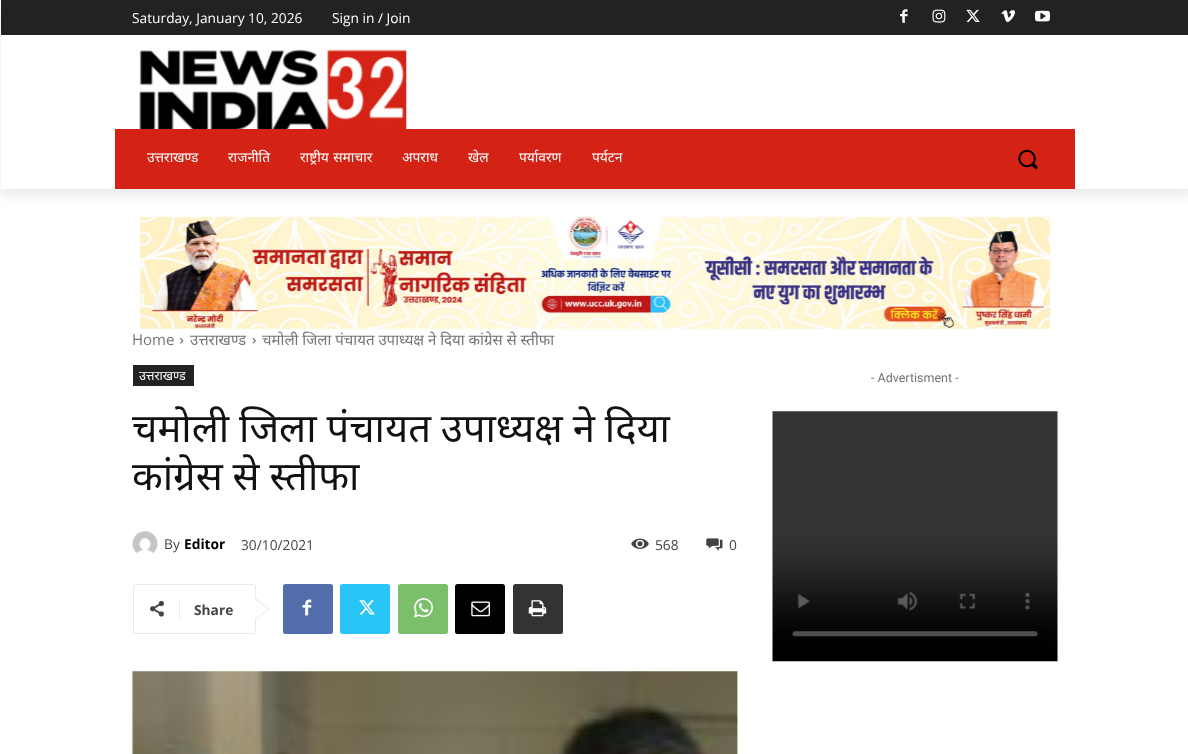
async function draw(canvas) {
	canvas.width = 1188;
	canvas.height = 754;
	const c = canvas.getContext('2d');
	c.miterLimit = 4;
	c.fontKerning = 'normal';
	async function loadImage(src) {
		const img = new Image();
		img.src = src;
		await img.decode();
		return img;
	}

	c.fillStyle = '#fff';
	c.fillRect(0, 0, 1188, 754);
	c.fillStyle = '#222';
	c.fillRect(1, 0, 1187, 35);
	c.drawImage(await loadImage('img1.png'), 900, 9, 8, 14);
	c.drawImage(await loadImage('img2.png'), 932, 9, 14, 14);
	c.drawImage(await loadImage('img3.png'), 966, 9, 14, 13);
	c.drawImage(await loadImage('img4.png'), 1001, 10, 14, 13);
	c.drawImage(await loadImage('img5.png'), 1035, 10, 15, 12);
	c.drawImage(await loadImage('img6.png'), 139, 49, 268, 80);
	c.fillStyle = '#d42214';
	c.fillRect(115, 129, 960, 60);
	c.save();
	c.beginPath();
	c.moveTo(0, 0);
	c.lineTo(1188, 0);
	c.lineTo(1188, 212);
	c.lineTo(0, 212);
	c.closePath();
	c.moveTo(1, 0);
	c.lineTo(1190, 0);
	c.lineTo(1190, 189);
	c.lineTo(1, 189);
	c.closePath();
	c.clip('evenodd');
	c.fillStyle = '#00000014';
	c.filter = 'blur(5px)';
	c.beginPath();
	c.rect(1, 8, 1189, 188);
	c.fill();
	c.filter = 'none';
	c.restore();
	c.font = '13.75px Open Sans';
	c.fillStyle = '#fff';
	c.fillText('Saturday, January 10, 2026', 132, 23);
	c.fillText('Sign in / Join', 332, 23);
	c.font = '13.75px Noto Sans';
	c.fillText('उत्तराखण्ड', 147, 162);
	c.fillText('राजनीति', 228, 162);
	c.wordSpacing = '1px';
	c.fillText('राष्ट्रीय समाचार', 300, 162);
	c.wordSpacing = '0px';
	for (const [text, x, y] of [
		['अपराध', 402, 162],
		['खेल', 468, 162],
		['पर्यावरण', 519, 162],
		['पर्यटन', 592, 162],
	]) {
		c.fillText(text, x, y);
	}
	c.drawImage(await loadImage('img7.png'), 1018, 149, 20, 20);
	c.drawImage(await loadImage('img8.png'), 139, 216, 912, 113);
	c.font = '15px Open Sans';
	c.fillStyle = '#747474';
	c.fillText('Home', 132, 345);
	c.drawImage(await loadImage('img9.png'), 180, 337, 4, 7);
	c.font = '15px Noto Sans';
	c.fillText('उत्तराखण्ड', 190, 345);
	c.drawImage(await loadImage('img10.png'), 252, 337, 4, 7);
	c.fillText('चमोली जिला पंचायत उपाध्यक्ष ने दिया कांग्रेस से स्तीफा', 262, 345);
	c.fillStyle = '#222';
	c.fillRect(133, 365, 61, 21);
	c.font = '12.5px Noto Sans';
	c.fillStyle = '#fff';
	c.fillText('उत्तराखण्ड', 139, 380);
	c.wordSpacing = '-0.5px';
	c.font = '40px Noto Sans';
	c.fillStyle = '#111';
	c.fillText('चमोली जिला पंचायत उपाध्यक्ष ने दिया', 132, 442);
	c.fillText('कांग्रेस से स्तीफा', 132, 490);
	c.drawImage(await loadImage('img11.png'), 132, 531, 26, 23);
	c.wordSpacing = '0px';
	c.font = '13.75px Open Sans';
	c.fillStyle = '#444';
	c.fillText('By', 164, 549);
	c.font = 'bold 13.75px Open Sans';
	c.fillStyle = '#000';
	c.fillText('Editor', 184, 549);
	c.font = '13.75px Open Sans';
	c.fillStyle = '#444';
	c.fillText('30/10/2021', 241, 550);
	c.drawImage(await loadImage('img12.png'), 631, 538, 18, 11);
	c.fillText('568', 655, 550);
	c.drawImage(await loadImage('img13.png'), 706, 538, 17, 13);
	c.fillText('0', 729, 550);
	c.beginPath();
	c.roundRect(133.5, 584.5, 122, 49, 2);
	c.strokeStyle = '#e9e9e9';
	c.stroke();
	c.fillStyle = '#e9e9e9';
	c.beginPath();
	c.moveTo(255, 620);
	c.lineTo(255, 597.5);
	c.lineTo(269, 609);
	c.closePath();
	c.fill();
	c.drawImage(await loadImage('img14.png'), 150, 600, 14, 17);
	c.fillStyle = '#ebebeb';
	c.fillRect(179, 600, 1, 20);
	c.font = 'bold 13.75px Open Sans';
	c.fillStyle = '#444';
	c.fillText('Share', 194, 615);
	c.fillStyle = '#fff';
	c.beginPath();
	c.moveTo(255, 619);
	c.lineTo(255, 599);
	c.lineTo(267.5, 609);
	c.closePath();
	c.fill();
	c.fillStyle = '#516eab';
	c.beginPath();
	c.roundRect(283, 584, 50, 50, 2.5);
	c.fill();
	c.drawImage(await loadImage('img15.png'), 302, 599, 10, 17);
	c.fillStyle = '#29c5f6';
	c.beginPath();
	c.roundRect(340, 584, 50, 50, 2.5);
	c.fill();
	c.drawImage(await loadImage('img16.png'), 359, 600, 16, 15);
	c.fillStyle = '#7bbf6a';
	c.beginPath();
	c.roundRect(398, 584, 50, 50, 2.5);
	c.fill();
	c.drawImage(await loadImage('img17.png'), 413, 598, 20, 20);
	c.fillStyle = '#000';
	c.beginPath();
	c.roundRect(455, 584, 50, 50, 2.5);
	c.fill();
	c.drawImage(await loadImage('img18.png'), 471, 601, 19, 16);
	c.fillStyle = '#333';
	c.beginPath();
	c.roundRect(513, 584, 50, 50, 2.5);
	c.fill();
	c.drawImage(await loadImage('img19.png'), 528, 600, 19, 17);
	c.drawImage(await loadImage('img20.png'), 132, 671, 606, 83);
	c.font = '12.5px Roboto';
	c.fillStyle = '#747474';
	c.fillText('- Advertisment -', 871, 382);
	c.drawImage(await loadImage('img21.png'), 772, 411, 286, 251);
}

draw(document.querySelector('canvas'));
